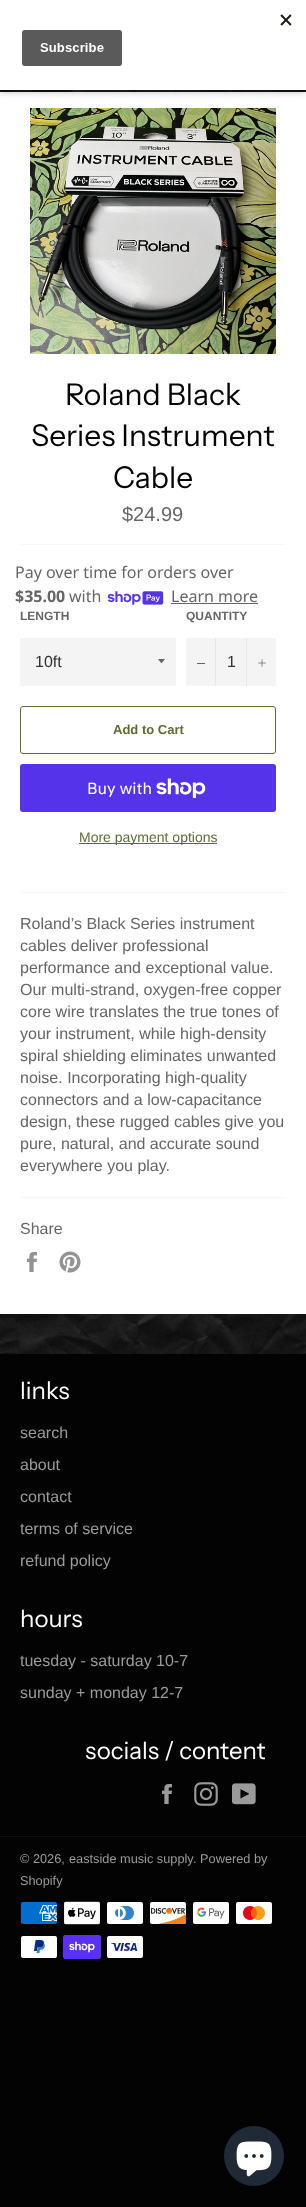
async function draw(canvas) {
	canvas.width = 306;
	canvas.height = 2207;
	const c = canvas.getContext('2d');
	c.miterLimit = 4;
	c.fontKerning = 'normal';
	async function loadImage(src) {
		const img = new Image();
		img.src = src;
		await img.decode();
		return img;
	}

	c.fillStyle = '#030303';
	c.fillRect(0, 0, 306, 2207);
	c.drawImage(await loadImage('img2.png'), 0, 90, 306, 1264);
	c.fillStyle = '#fff';
	c.fillRect(0, 92, 306, 1222);
	c.fillStyle = '#00000033';
	c.filter = 'blur(3px)';
	c.beginPath();
	c.rect(0, 3, 306, 90);
	c.fill();
	c.filter = 'none';
	c.fillStyle = '#fff';
	c.fillRect(0, 0, 306, 90);
	c.drawImage(await loadImage('img1.png'), 22, 14, 270, 52);
	c.drawImage(await loadImage('img3.png'), 30, 108, 246, 246);
	c.font = '30px Instrument Sans';
	c.fillStyle = '#030303';
	for (const [text, x, y] of [
		['Roland Black', 65, 405],
		['Series Instrument', 31, 446],
		['Cable', 113, 488],
	]) {
		c.fillText(text, x, y);
	}
	c.font = '20px Liberation Sans';
	c.fillStyle = '#666';
	c.fillText('$24.99', 122, 521);
	c.fillStyle = '#f7f7f7';
	c.fillRect(20, 544, 266, 1);
	c.font = '16px Noto Sans';
	c.fillStyle = '#666';
	c.fillText('Pay over time for orders over', 15, 578);
	c.font = 'bold 16px Noto Sans';
	c.fillText('$35.00', 15, 602);
	c.font = '16px Noto Sans';
	c.fillText('with', 69, 602);
	c.drawImage(await loadImage('img4.png'), 107, 591, 57, 14);
	c.fillText('Learn more', 171, 602);
	c.fillRect(171, 603, 87, 1);
	c.font = 'bold 12px Liberation Sans';
	c.fillText('LENGTH', 20, 620);
	c.fillStyle = '#f4f4f4';
	c.fillRect(20, 638, 156, 48);
	c.fillStyle = '#666';
	c.beginPath();
	c.moveTo(158, 659);
	c.bezierCurveTo(162.5, 664.5, 160.5, 664.5, 165, 659);
	c.closePath();
	c.fill();
	c.font = '16px Liberation Sans';
	c.fillStyle = '#333';
	c.fillText('10ft', 35, 667);
	c.font = 'bold 12px Liberation Sans';
	c.fillStyle = '#666';
	c.fillText('QUANTITY', 186, 620);
	for (const [x, y, w, h, color] of [
		[186, 638, 90, 48, '#f4f4f4'],
		[215, 638, 1, 48, '#e7e7e7'],
		[197, 663, 8, 1, '#666'],
	]) {
		c.fillStyle = color;
		c.fillRect(x, y, w, h);
	}
	c.font = '16px Liberation Sans';
	c.fillStyle = '#333';
	c.fillText('1', 227, 667);
	c.fillStyle = '#e7e7e7';
	c.fillRect(246, 638, 1, 48);
	c.drawImage(await loadImage('img5.png'), 258, 659, 8, 8);
	c.beginPath();
	c.roundRect(20.5, 706.5, 255, 47, 2.5);
	c.strokeStyle = '#5c6e31';
	c.stroke();
	c.font = 'bold 13px Liberation Sans';
	c.fillStyle = '#5c6e31';
	c.fillText('Add to Cart', 113, 734);
	c.fillStyle = '#5433eb';
	c.beginPath();
	c.roundRect(20, 764, 256, 48, 3);
	c.fill();
	c.font = '16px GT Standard';
	c.fillStyle = '#fff';
	c.fillText('Buy with', 87, 794);
	c.drawImage(await loadImage('img6.png'), 156, 778, 50, 20);
	c.fillStyle = '#5c6e31';
	c.fillRect(79, 843, 138, 1);
	c.font = '14px Liberation Sans';
	c.fillText('More payment options', 79, 842);
	c.fillStyle = '#f7f7f7';
	c.fillRect(20, 892, 266, 1);
	c.font = '16px Liberation Sans';
	c.fillStyle = '#666';
	for (const [text, x, y] of [
		['Roland’s Black Series instrument', 20, 929],
		['cables deliver professional', 20, 951],
		['performance and exceptional value.', 20, 973],
		['Our multi-strand, oxygen-free copper', 20, 995],
		['core wire translates the true tones of', 20, 1017],
		['your instrument, while high-density', 20, 1039],
		['spiral shielding eliminates unwanted', 20, 1061],
		['noise. Incorporating high-quality', 20, 1083],
		['connectors and a low-capacitance', 20, 1105],
		['design, these rugged cables give you', 20, 1127],
		['pure, natural, and accurate sound', 20, 1149],
		['everywhere you play.', 20, 1171],
	]) {
		c.fillText(text, x, y);
	}
	c.fillStyle = '#f7f7f7';
	c.fillRect(20, 1197, 266, 1);
	c.fillStyle = '#666';
	c.fillText('Share', 20, 1234);
	c.drawImage(await loadImage('img7.png'), 27, 1252, 10, 20);
	c.drawImage(await loadImage('img8.png'), 59, 1251, 22, 22);
	c.font = '24px Instrument Sans';
	c.fillStyle = '#fff';
	c.fillText('links', 20, 1399);
	c.font = '16px Liberation Sans';
	c.fillStyle = '#9a9a9a';
	for (const [text, x, y] of [
		['search', 20, 1438],
		['about', 20, 1470],
		['contact', 20, 1502],
		['terms of service', 20, 1534],
		['refund policy', 20, 1566],
	]) {
		c.fillText(text, x, y);
	}
	c.font = '24px Instrument Sans';
	c.fillStyle = '#fff';
	c.fillText('hours', 20, 1627);
	c.font = '16px Liberation Sans';
	c.fillStyle = '#9a9a9a';
	c.fillText('tuesday - saturday 10-7', 20, 1666);
	c.fillText('sunday + monday 12-7', 20, 1698);
	c.font = '24px Instrument Sans';
	c.fillStyle = '#fff';
	c.fillText('socials / content', 85, 1759);
	c.drawImage(await loadImage('img9.png'), 162, 1784, 10, 20);
	c.drawImage(await loadImage('img10.png'), 194, 1782, 24, 24);
	c.drawImage(await loadImage('img11.png'), 232, 1783, 24, 22);
	c.fillStyle = '#101010';
	c.fillRect(0, 1836, 306, 1);
	c.font = '12.75px Liberation Sans';
	c.fillStyle = '#9a9a9a';
	for (const [text, x, y] of [
		['© 2026,', 20, 1863],
		['eastside music supply', 69, 1863],
		['. Powered by', 193, 1863],
		['Shopify', 20, 1885],
	]) {
		c.fillText(text, x, y);
	}
	c.drawImage(await loadImage('img12.png'), 21, 1902, 36, 22);
	c.drawImage(await loadImage('img13.png'), 64, 1901, 36, 24);
	c.drawImage(await loadImage('img14.png'), 107, 1902, 36, 22);
	c.drawImage(await loadImage('img15.png'), 150, 1902, 37, 22);
	c.drawImage(await loadImage('img16.png'), 193, 1902, 36, 22);
	c.drawImage(await loadImage('img17.png'), 236, 1902, 36, 22);
	c.drawImage(await loadImage('img18.png'), 21, 1936, 36, 22);
	c.drawImage(await loadImage('img19.png'), 63, 1935, 38, 24);
	c.drawImage(await loadImage('img20.png'), 107, 1936, 36, 22);
	c.fillStyle = '#202a36';
	c.beginPath();
	c.arc(254, 2156, 30, 0, 2 * Math.PI);
	c.fill();
	c.drawImage(await loadImage('img21.png'), 236, 2141, 36, 36);
}

draw(document.querySelector('canvas'));
